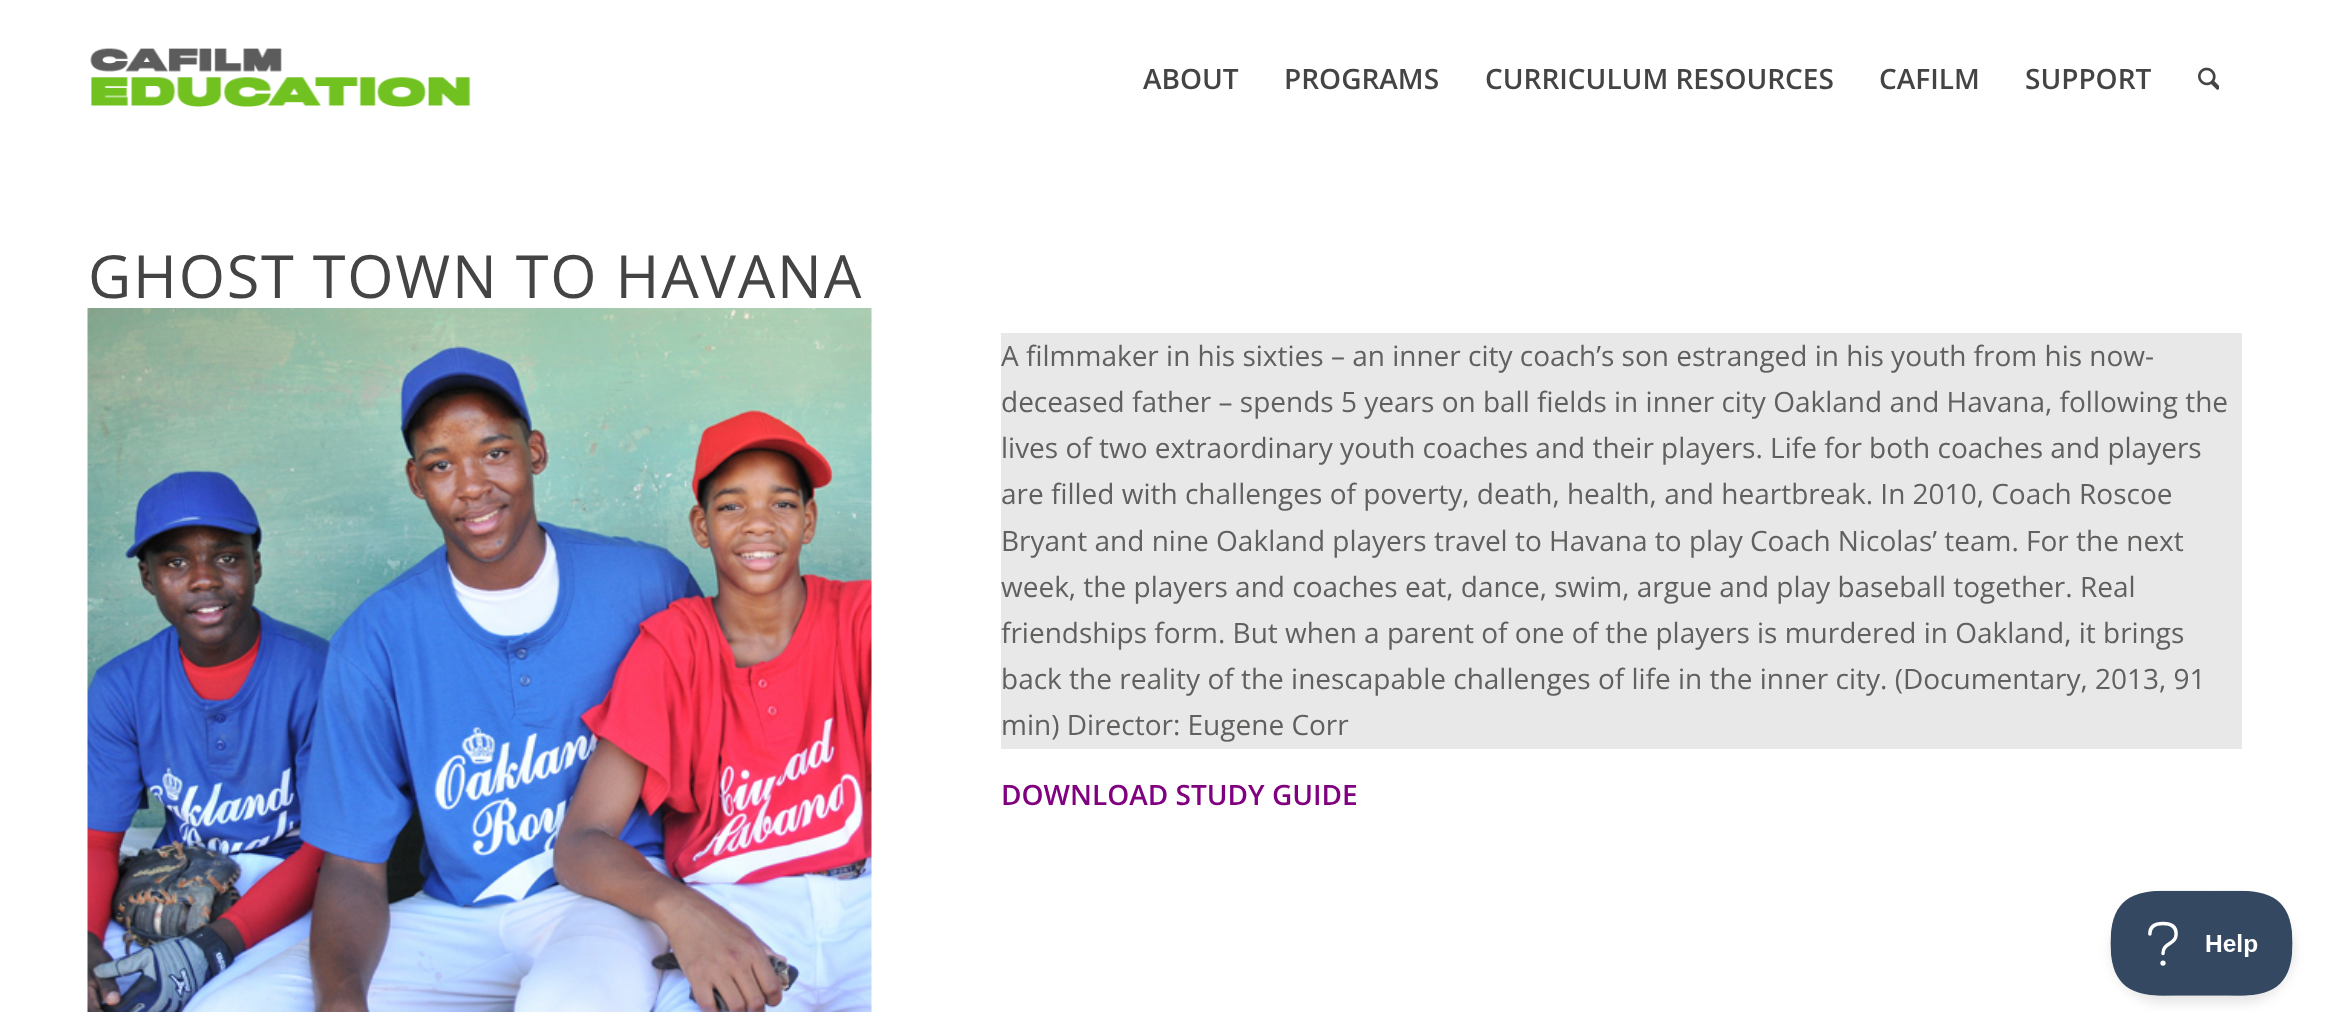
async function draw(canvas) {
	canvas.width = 2328;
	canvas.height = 1012;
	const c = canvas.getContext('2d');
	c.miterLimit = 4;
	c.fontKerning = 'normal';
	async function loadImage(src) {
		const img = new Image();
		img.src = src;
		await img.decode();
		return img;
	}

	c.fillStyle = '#fff';
	c.fillRect(0, 0, 2328, 1012);
	c.drawImage(await loadImage('img1.png'), 90, 48, 381, 59);
	c.font = '600 28px Open Sans';
	c.fillStyle = '#444';
	for (const [text, x, y] of [
		['ABOUT', 1143, 89],
		['PROGRAMS', 1284, 89],
		['CURRICULUM RESOURCES', 1485, 89],
		['CAFILM', 1879, 89],
		['SUPPORT', 2025, 89],
	]) {
		c.fillText(text, x, y);
	}
	c.drawImage(await loadImage('img2.png'), 2198, 67, 21, 23);
	c.letterSpacing = '1.75px';
	c.font = '59.5px Open Sans';
	c.fillText('GHOST TOWN TO HAVANA', 88, 298);
	c.drawImage(await loadImage('img3.png'), 87, 308, 785, 704);
	c.fillStyle = '#e8e8e8';
	c.fillRect(1001, 333, 1241, 416);
	c.letterSpacing = '0px';
	c.font = '28px Open Sans';
	c.fillStyle = '#60615f';
	for (const [text, x, y] of [
		['A filmmaker in his sixties – an inner city coach’s son estranged in his youth from his now-', 1001, 366],
		['deceased father – spends 5 years on ball fields in inner city Oakland and Havana, following the', 1001, 412],
		['lives of two extraordinary youth coaches and their players. Life for both coaches and players', 1001, 458],
		['are filled with challenges of poverty, death, health, and heartbreak. In 2010, Coach Roscoe', 1001, 504],
		['Bryant and nine Oakland players travel to Havana to play Coach Nicolas’ team. For the next', 1001, 551],
		['week, the players and coaches eat, dance, swim, argue and play baseball together. Real', 1001, 597],
		['friendships form. But when a parent of one of the players is murdered in Oakland, it brings', 1001, 643],
		['back the reality of the inescapable challenges of life in the inner city. (Documentary, 2013, 91', 1001, 689],
		['min) Director: Eugene Corr', 1001, 735],
	]) {
		c.fillText(text, x, y);
	}
	c.font = '600 28px Open Sans';
	c.fillStyle = '#800080';
	c.fillText('DOWNLOAD STUDY GUIDE', 1001, 805);
	c.fillStyle = '#0000001a';
	c.filter = 'blur(6px)';
	c.beginPath();
	c.roundRect(2111, 898, 183, 105, 52.5);
	c.fill();
	c.filter = 'none';
	c.drawImage(await loadImage('img4.png'), 2110, 890, 183, 106);
}

draw(document.querySelector('canvas'));
